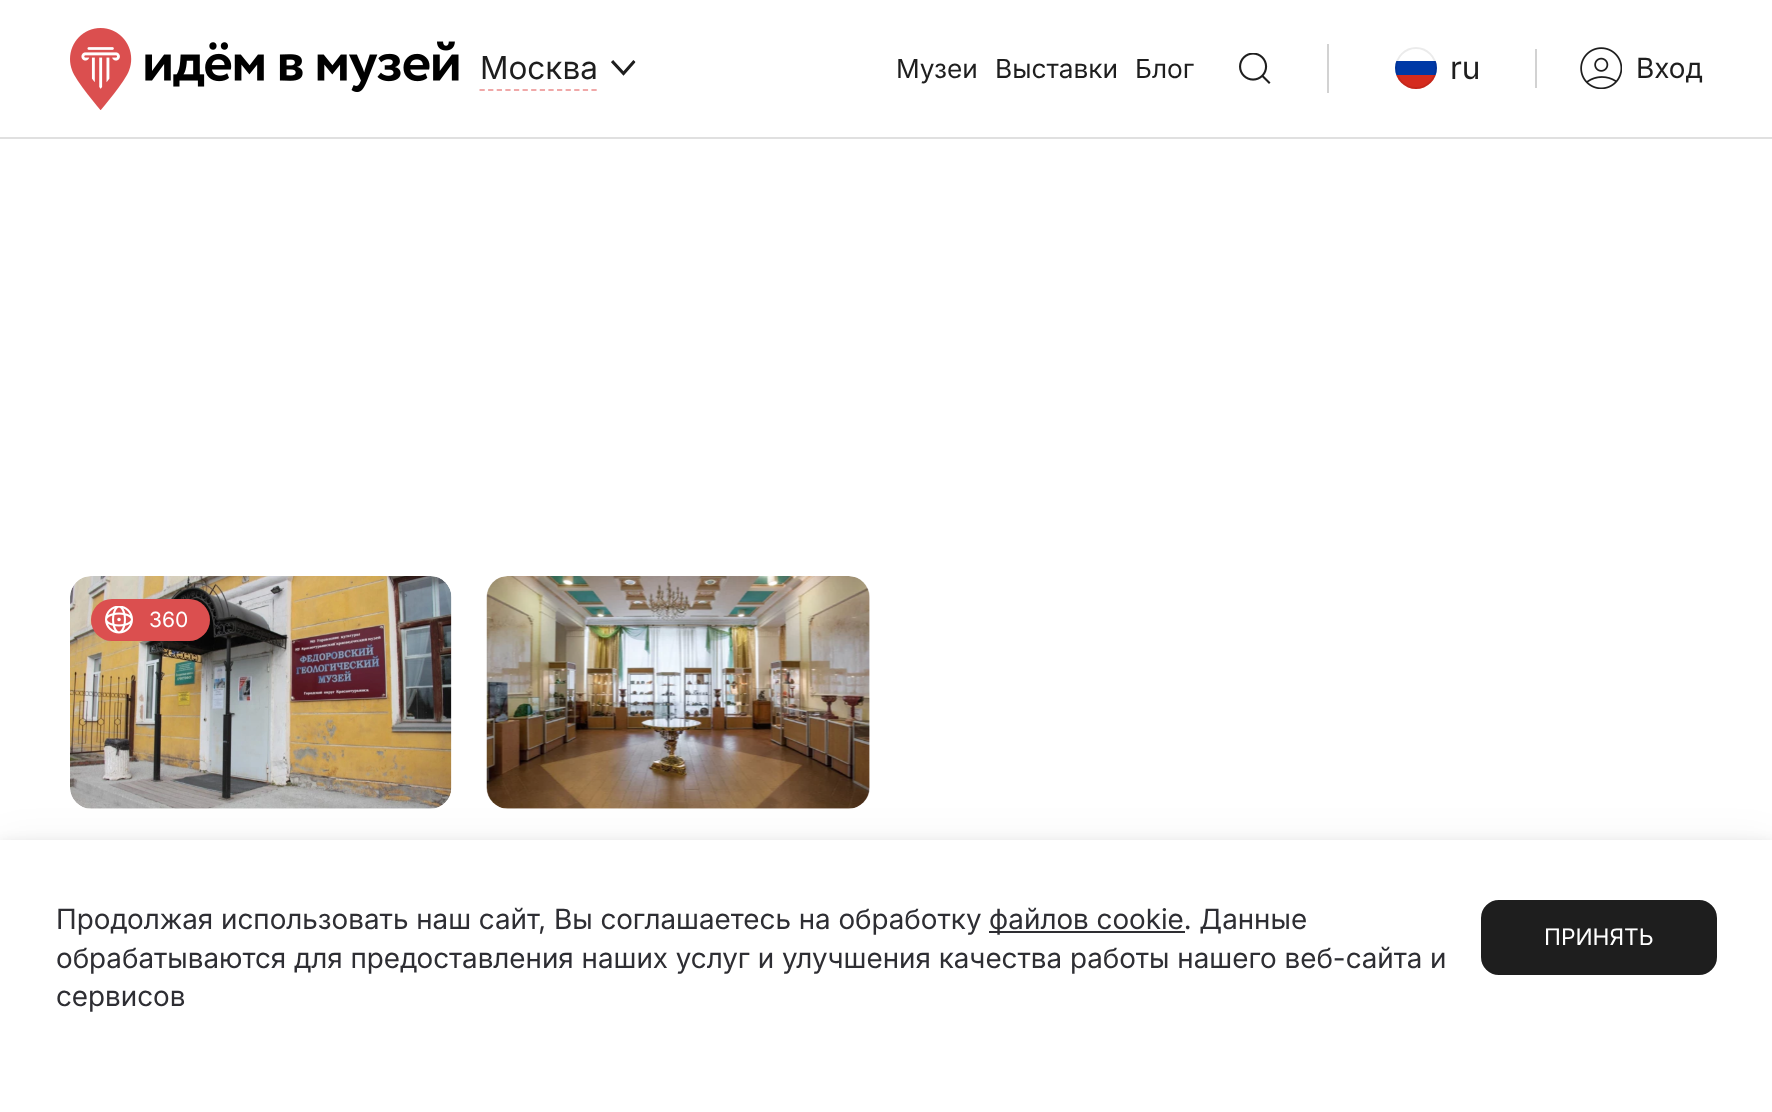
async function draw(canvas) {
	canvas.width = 1772;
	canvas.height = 1112;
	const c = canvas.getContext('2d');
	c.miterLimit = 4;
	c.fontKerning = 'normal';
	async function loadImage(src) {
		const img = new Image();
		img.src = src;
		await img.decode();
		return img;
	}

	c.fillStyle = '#fff';
	c.fillRect(0, 0, 1772, 1112);
	c.fillStyle = '#e0e0e0';
	c.fillRect(0, 137, 1772, 2);
	c.drawImage(await loadImage('img1.png'), 70, 28, 389, 82);
	c.beginPath();
	c.moveTo(479.5, 90);
	c.lineTo(597, 90);
	c.strokeStyle = '#f0a8a8';
	c.lineWidth = 1.8;
	c.setLineDash([5.25, 3.36]);
	c.stroke();
	c.font = '31.5px Inter';
	c.fillStyle = '#1e1e1e';
	c.fillText('Москва', 480, 79);
	c.save();
	c.beginPath();
	c.moveTo(635.5, 55.5);
	c.lineTo(635.5, 80);
	c.lineTo(611, 80);
	c.lineTo(611, 55.5);
	c.closePath();
	c.clip();
	c.beginPath();
	c.moveTo(634.5, 61);
	c.lineTo(623.5, 73.5);
	c.lineTo(612, 61);
	c.strokeStyle = '#1e1e1e';
	c.lineWidth = 3.1;
	c.setLineDash([]);
	c.stroke();
	c.restore();
	c.font = '26.25px Inter';
	for (const [text, x, y] of [
		['Музеи', 896, 78],
		['Выставки', 995, 78],
		['Блог', 1135, 78],
	]) {
		c.fillText(text, x, y);
	}
	c.drawImage(await loadImage('img2.png'), 1239, 53, 32, 31);
	c.fillStyle = '#d2d2d2';
	c.fillRect(1327, 44, 2, 49);
	c.save();
	c.beginPath();
	c.roundRect(1395, 47, 42, 42, 21);
	c.clip();
	c.fillStyle = '#0039a6';
	c.fillRect(1395, 61, 42, 14);
	c.fillStyle = '#d52b1e';
	c.fillRect(1396, 75, 40, 14);
	c.restore();
	c.beginPath();
	c.arc(1416, 68, 20, 0, 2 * Math.PI);
	c.strokeStyle = '#00000014';
	c.lineWidth = 2;
	c.setLineDash([]);
	c.stroke();
	c.font = '31.5px Inter';
	c.fillStyle = '#1e1e1e';
	c.fillText('ru', 1450, 79);
	c.fillStyle = '#d2d2d2';
	c.fillRect(1535, 49, 2, 39);
	c.drawImage(await loadImage('img3.png'), 1580, 47, 42, 42);
	c.font = '28px "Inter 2"';
	c.fillStyle = '#1e1e1e';
	c.fillText('Вход', 1636, 78);
	c.drawImage(await loadImage('img4.png'), 70, 576, 382, 233);
	c.fillStyle = '#db4f4f';
	c.beginPath();
	c.roundRect(91, 599, 119, 42, 21);
	c.fill();
	c.drawImage(await loadImage('img5.png'), 105, 606, 28, 28);
	c.font = '21px Inter';
	c.fillStyle = '#fff';
	c.fillText('360', 149, 627);
	c.drawImage(await loadImage('img6.png'), 486, 576, 384, 233);
	c.fillStyle = '#0000001f';
	c.filter = 'blur(7px)';
	c.beginPath();
	c.rect(0, 844, 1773, 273);
	c.fill();
	c.filter = 'none';
	c.fillStyle = '#0000000f';
	c.filter = 'blur(21px)';
	c.beginPath();
	c.rect(0, 844, 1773, 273);
	c.fill();
	c.filter = 'none';
	c.fillStyle = '#fff';
	c.fillRect(0, 840, 1772, 272);
	c.font = '28px "Inter 2"';
	c.fillStyle = '#2e2e33';
	c.fillText('Продолжая использовать наш сайт, Вы соглашаетесь на обработку', 56, 929);
	c.fillRect(989, 931, 196, 2);
	for (const [text, x, y] of [
		['файлов cookie. Данные', 989, 929],
		['обрабатываются для предоставления наших услуг и улучшения качества работы нашего веб-сайта и', 56, 968],
		['сервисов', 56, 1006],
	]) {
		c.fillText(text, x, y);
	}
	c.fillStyle = '#1e1e1e';
	c.beginPath();
	c.roundRect(1482, 901, 234, 73, 17);
	c.fill();
	c.strokeStyle = '#1e1e1e';
	c.stroke();
	c.font = '22.75px Inter';
	c.fillStyle = '#fff';
	c.fillText('ПРИНЯТЬ', 1544, 945);
}

draw(document.querySelector('canvas'));
